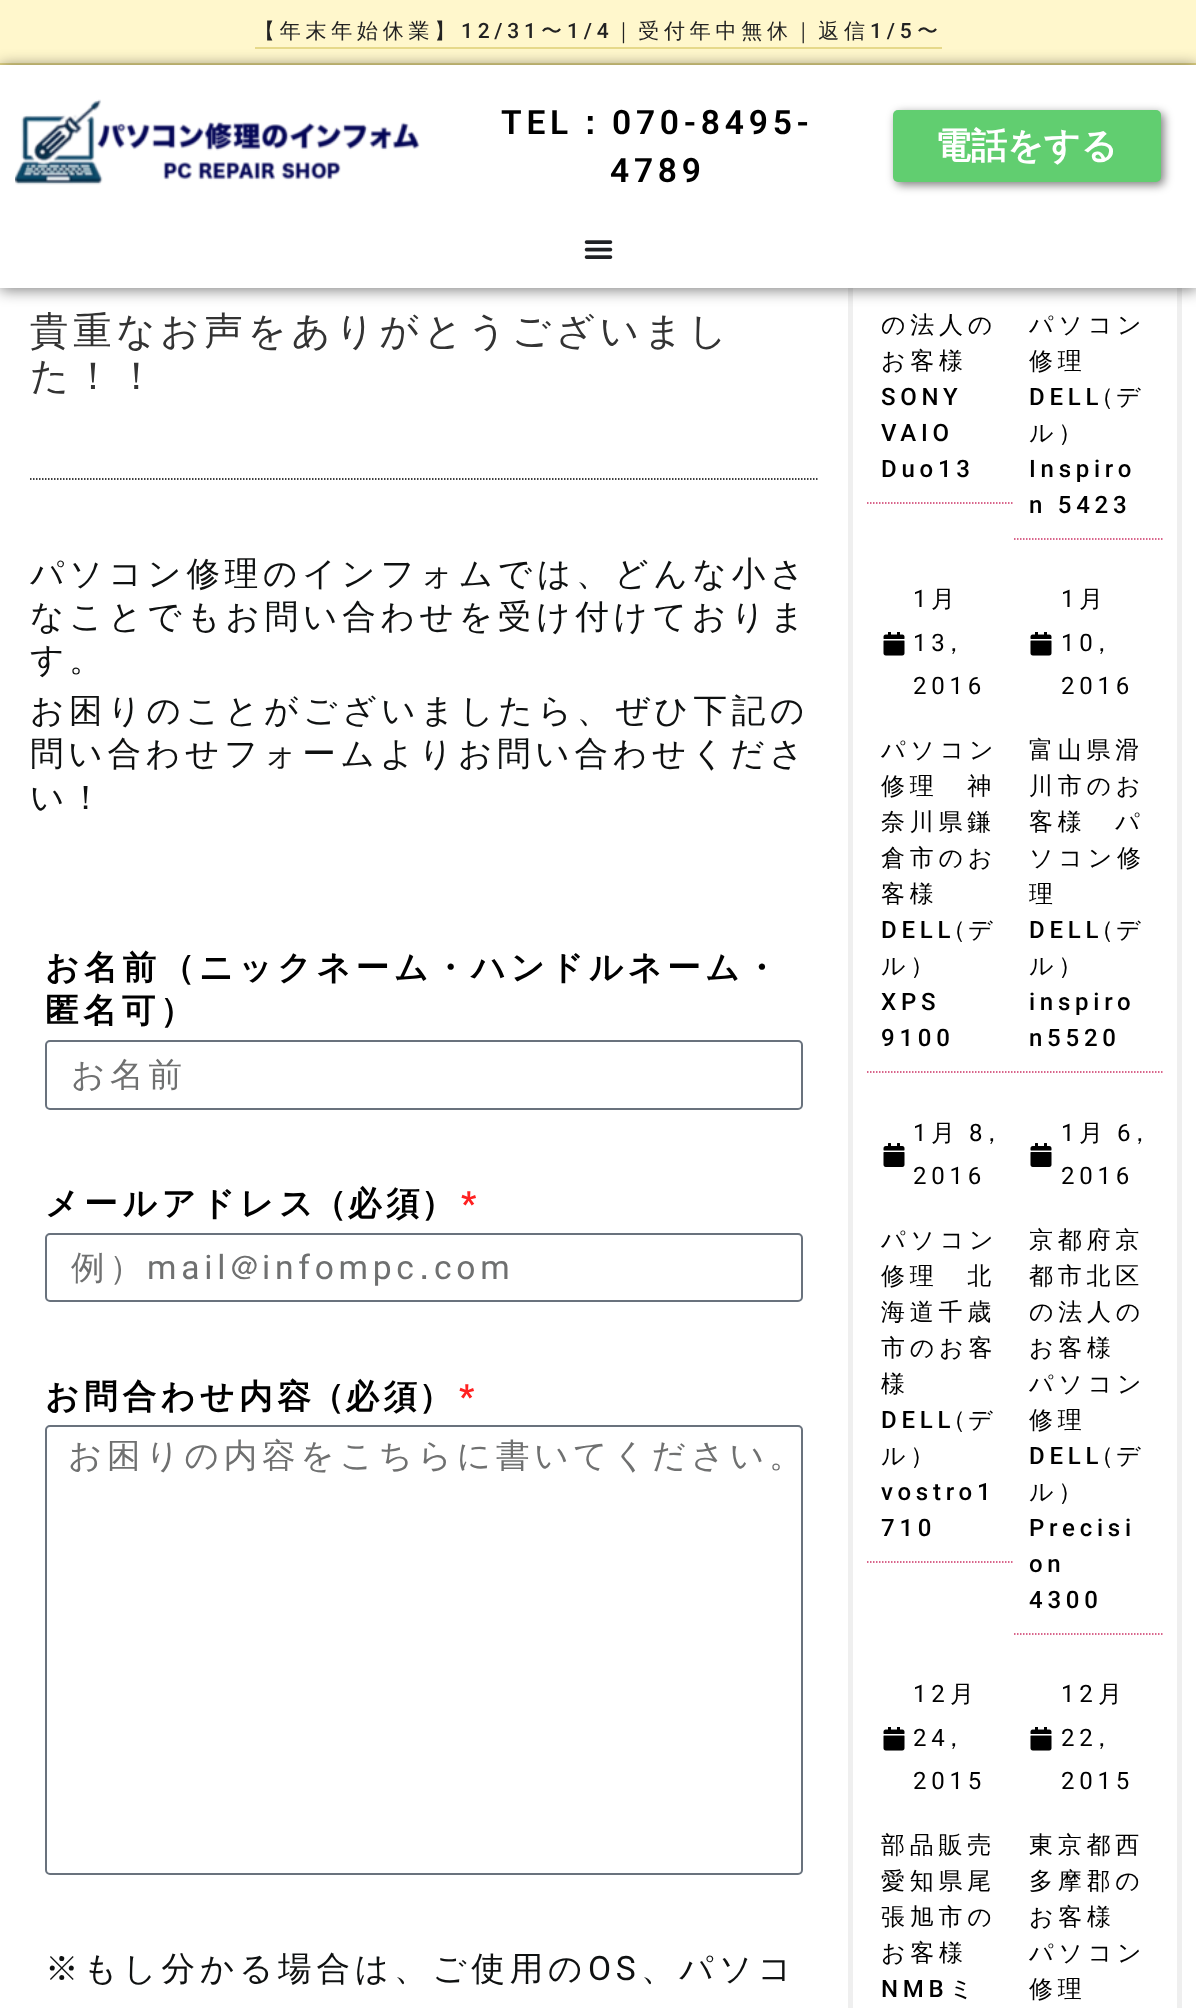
async function draw(canvas) {
	canvas.width = 1196;
	canvas.height = 2008;
	const c = canvas.getContext('2d');
	c.miterLimit = 4;
	c.fontKerning = 'normal';
	async function loadImage(src) {
		const img = new Image();
		img.src = src;
		await img.decode();
		return img;
	}

	c.fillStyle = '#fff';
	c.fillRect(0, 0, 1196, 2008);
	c.strokeStyle = '#efefef';
	c.lineWidth = 5;
	c.strokeRect(850.5, -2.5, 329, 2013);
	for (const [x, y, w, h, color] of [
		[0, 0, 1196, 63, '#fff7cc'],
		[0, 63, 1196, 2, '#e6d98a'],
		[255, 47, 687, 2, '#e6d98a'],
	]) {
		c.fillStyle = color;
		c.fillRect(x, y, w, h);
	}
	c.letterSpacing = '4.75px';
	c.font = '500 21px WenQuanYi Zen Hei';
	c.fillStyle = '#222';
	c.fillText('【年末年始休業】', 254, 38);
	c.font = '500 21px Roboto';
	c.fillText('12/31', 461, 38);
	c.font = '500 21px WenQuanYi Zen Hei';
	c.fillText('〜', 541, 38);
	c.font = '500 21px Roboto';
	c.fillText('1/4', 567, 38);
	c.font = '500 21px WenQuanYi Zen Hei';
	c.fillText('｜受付年中無休｜返信', 613, 38);
	c.font = '500 21px Roboto';
	c.fillText('1/5', 870, 38);
	c.font = '500 21px WenQuanYi Zen Hei';
	c.fillText('〜', 917, 38);
	c.fillStyle = '#00000080';
	c.filter = 'blur(7.5px)';
	c.beginPath();
	c.rect(0, 66, 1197, 224);
	c.fill();
	c.filter = 'none';
	c.fillStyle = '#fff';
	c.fillRect(0, 65, 1196, 223);
	c.drawImage(await loadImage('img1.png'), 15, 99, 405, 86);
	c.font = '600 33.6px Roboto';
	c.fillStyle = '#000';
	c.fillText('TEL', 501, 134);
	c.font = 'bold 33.6px WenQuanYi Zen Hei';
	c.fillText('：', 573, 134);
	c.font = '600 33.6px Roboto';
	c.fillText('070-8495-', 612, 134);
	c.fillText('4789', 610, 182);
	c.fillStyle = '#00000080';
	c.filter = 'blur(5px)';
	c.beginPath();
	c.roundRect(896, 113, 268, 72, 5);
	c.fill();
	c.filter = 'none';
	c.fillStyle = '#61ce70';
	c.beginPath();
	c.roundRect(893, 110, 268, 72, 5);
	c.fill();
	c.letterSpacing = '0px';
	c.font = 'bold 36px WenQuanYi Zen Hei';
	c.fillStyle = '#fff';
	c.fillText('電話をする', 935, 158);
	c.drawImage(await loadImage('img2.png'), 584, 240, 29, 19);
	c.letterSpacing = '4.75px';
	c.font = '500 38.4px WenQuanYi Zen Hei';
	c.fillStyle = '#333';
	c.fillText('貴重なお声をありがとうございまし', 30, 344);
	c.fillText('た！！', 30, 389);
	c.beginPath();
	c.moveTo(30, 479);
	c.lineTo(817.5, 479);
	c.strokeStyle = '#000';
	c.lineWidth = 1.5;
	c.setLineDash([1.5, 1.5]);
	c.stroke();
	c.font = '500 33.6px WenQuanYi Zen Hei';
	c.fillStyle = '#0f1111';
	for (const [text, x, y] of [
		['パソコン修理のインフォムでは、どんな小さ', 30, 585],
		['なことでもお問い合わせを受け付けておりま', 30, 628],
		['す。', 30, 671],
		['お困りのことがございましたら、ぜひ下記の', 30, 722],
		['問い合わせフォームよりお問い合わせくださ', 30, 765],
		['い！', 30, 809],
	]) {
		c.fillText(text, x, y);
	}
	c.font = 'bold 33.6px WenQuanYi Zen Hei';
	c.fillStyle = '#000';
	c.fillText('お名前（ニックネーム・ハンドルネーム・', 45, 979);
	c.fillText('匿名可）', 45, 1022);
	c.beginPath();
	c.roundRect(46, 1041, 756, 68, 4);
	c.strokeStyle = '#69727d';
	c.lineWidth = 2;
	c.setLineDash([]);
	c.stroke();
	c.font = '500 33.6px WenQuanYi Zen Hei';
	c.fillStyle = '#6f7070';
	c.fillText('お名前', 71, 1086);
	c.font = 'bold 33.6px WenQuanYi Zen Hei';
	c.fillStyle = '#000';
	c.fillText('メールアドレス (必須)', 45, 1215);
	c.font = 'bold 33.6px Roboto';
	c.fillStyle = '#ff2121';
	c.fillText('*', 461, 1215);
	c.beginPath();
	c.roundRect(46, 1234, 756, 67, 4);
	c.stroke();
	c.font = '500 33.6px WenQuanYi Zen Hei';
	c.fillStyle = '#6f7070';
	c.fillText('例）', 71, 1279);
	c.font = '33.6px Roboto';
	c.fillText('mail', 147, 1279);
	c.font = '500 33.6px WenQuanYi Zen Hei';
	c.fillText('@', 231, 1279);
	c.font = '33.6px Roboto';
	c.fillText('infompc', 262, 1279);
	c.font = '500 33.6px WenQuanYi Zen Hei';
	c.fillText('.', 419, 1279);
	c.font = '33.6px Roboto';
	c.fillText('com', 434, 1279);
	c.font = 'bold 33.6px WenQuanYi Zen Hei';
	c.fillStyle = '#000';
	c.fillText('お問合わせ内容 (必須)', 45, 1408);
	c.font = 'bold 33.6px Roboto';
	c.fillStyle = '#ff2121';
	c.fillText('*', 459, 1408);
	c.beginPath();
	c.roundRect(46, 1426, 756, 448, 4);
	c.stroke();
	c.font = '500 33.6px WenQuanYi Zen Hei';
	c.fillStyle = '#6f7070';
	c.fillText('お困りの内容をこちらに書いてください。', 68, 1467);
	c.fillStyle = '#0f1111';
	c.fillText('※もし分かる場合は、ご使用の', 45, 1980);
	c.font = '33.6px Roboto';
	c.fillText('OS', 588, 1980);
	c.font = '500 33.6px WenQuanYi Zen Hei';
	c.fillText('、パソコ', 641, 1980);
	c.beginPath();
	c.moveTo(867, 503);
	c.lineTo(1014, 503);
	c.strokeStyle = '#c36';
	c.lineWidth = 1.5;
	c.setLineDash([1.5, 1.5]);
	c.stroke();
	c.font = '500 24px WenQuanYi Zen Hei';
	c.fillStyle = '#000';
	c.fillText('の法人の', 881, 333);
	c.fillText('お客様', 881, 369);
	c.font = '500 24px Roboto';
	for (const [text, x, y] of [
		['SONY', 881, 405],
		['VAIO', 881, 441],
		['Duo13', 881, 477],
	]) {
		c.fillText(text, x, y);
	}
	c.beginPath();
	c.moveTo(1014, 539);
	c.lineTo(1162.5, 539);
	c.stroke();
	c.font = '500 24px WenQuanYi Zen Hei';
	c.fillText('パソコン', 1029, 333);
	c.fillText('修理', 1029, 369);
	c.font = '500 24px Roboto';
	c.fillText('DELL', 1029, 405);
	c.font = '500 24px WenQuanYi Zen Hei';
	c.fillText('(デ', 1104, 405);
	c.fillText('ル）', 1029, 441);
	c.font = '500 24px Roboto';
	c.fillText('Inspiro', 1029, 477);
	c.fillText('n 5423', 1029, 513);
	c.beginPath();
	c.moveTo(867, 1072);
	c.lineTo(1014, 1072);
	c.stroke();
	c.drawImage(await loadImage('img3.png'), 883, 632, 22, 24);
	c.font = '24px Roboto';
	c.fillText('1', 913, 607);
	c.font = '500 24px WenQuanYi Zen Hei';
	c.fillText('月', 931, 607);
	c.font = '24px Roboto';
	c.fillText('13', 913, 651);
	c.font = '500 24px WenQuanYi Zen Hei';
	c.fillText(',', 950, 651);
	c.font = '24px Roboto';
	c.fillText('2016', 913, 694);
	c.font = '500 24px WenQuanYi Zen Hei';
	for (const [text, x, y] of [
		['パソコン', 881, 758],
		['修理　神', 881, 794],
		['奈川県鎌', 881, 830],
		['倉市のお', 881, 866],
		['客様', 881, 902],
	]) {
		c.fillText(text, x, y);
	}
	c.font = '500 24px Roboto';
	c.fillText('DELL', 881, 938);
	c.font = '500 24px WenQuanYi Zen Hei';
	c.fillText('(デ', 956, 938);
	c.fillText('ル）', 881, 974);
	c.font = '500 24px Roboto';
	c.fillText('XPS', 881, 1010);
	c.fillText('9100', 881, 1046);
	c.beginPath();
	c.moveTo(1014, 1072);
	c.lineTo(1162.5, 1072);
	c.stroke();
	c.drawImage(await loadImage('img3.png'), 1030, 632, 22, 24);
	c.font = '24px Roboto';
	c.fillText('1', 1061, 607);
	c.font = '500 24px WenQuanYi Zen Hei';
	c.fillText('月', 1079, 607);
	c.font = '24px Roboto';
	c.fillText('10', 1061, 651);
	c.font = '500 24px WenQuanYi Zen Hei';
	c.fillText(',', 1098, 651);
	c.font = '24px Roboto';
	c.fillText('2016', 1061, 694);
	c.font = '500 24px WenQuanYi Zen Hei';
	for (const [text, x, y] of [
		['富山県滑', 1029, 758],
		['川市のお', 1029, 794],
		['客様　パ', 1029, 830],
		['ソコン修', 1029, 866],
		['理', 1029, 902],
	]) {
		c.fillText(text, x, y);
	}
	c.font = '500 24px Roboto';
	c.fillText('DELL', 1029, 938);
	c.font = '500 24px WenQuanYi Zen Hei';
	c.fillText('(デ', 1104, 938);
	c.fillText('ル）', 1029, 974);
	c.font = '500 24px Roboto';
	c.fillText('inspiro', 1029, 1010);
	c.fillText('n5520', 1029, 1046);
	c.beginPath();
	c.moveTo(867, 1562);
	c.lineTo(1014, 1562);
	c.stroke();
	c.drawImage(await loadImage('img4.png'), 883, 1143, 22, 24);
	c.font = '24px Roboto';
	c.fillText('1', 913, 1141);
	c.font = '500 24px WenQuanYi Zen Hei';
	c.fillText('月', 931, 1141);
	c.font = '24px Roboto';
	c.fillText('8', 969, 1141);
	c.font = '500 24px WenQuanYi Zen Hei';
	c.fillText(',', 988, 1141);
	c.font = '24px Roboto';
	c.fillText('2016', 913, 1184);
	c.font = '500 24px WenQuanYi Zen Hei';
	for (const [text, x, y] of [
		['パソコン', 881, 1248],
		['修理　北', 881, 1284],
		['海道千歳', 881, 1320],
		['市のお客', 881, 1356],
		['様', 881, 1392],
	]) {
		c.fillText(text, x, y);
	}
	c.font = '500 24px Roboto';
	c.fillText('DELL', 881, 1428);
	c.font = '500 24px WenQuanYi Zen Hei';
	c.fillText('(デ', 956, 1428);
	c.fillText('ル）', 881, 1464);
	c.font = '500 24px Roboto';
	c.fillText('vostro1', 881, 1500);
	c.fillText('710', 881, 1536);
	c.beginPath();
	c.moveTo(1014, 1634);
	c.lineTo(1162.5, 1634);
	c.stroke();
	c.drawImage(await loadImage('img4.png'), 1030, 1143, 22, 24);
	c.font = '24px Roboto';
	c.fillText('1', 1061, 1141);
	c.font = '500 24px WenQuanYi Zen Hei';
	c.fillText('月', 1079, 1141);
	c.font = '24px Roboto';
	c.fillText('6', 1117, 1141);
	c.font = '500 24px WenQuanYi Zen Hei';
	c.fillText(',', 1136, 1141);
	c.font = '24px Roboto';
	c.fillText('2016', 1061, 1184);
	c.font = '500 24px WenQuanYi Zen Hei';
	for (const [text, x, y] of [
		['京都府京', 1029, 1248],
		['都市北区', 1029, 1284],
		['の法人の', 1029, 1320],
		['お客様', 1029, 1356],
		['パソコン', 1029, 1392],
		['修理', 1029, 1428],
	]) {
		c.fillText(text, x, y);
	}
	c.font = '500 24px Roboto';
	c.fillText('DELL', 1029, 1464);
	c.font = '500 24px WenQuanYi Zen Hei';
	c.fillText('(デ', 1104, 1464);
	c.fillText('ル）', 1029, 1500);
	c.font = '500 24px Roboto';
	for (const [text, x, y] of [
		['Precisi', 1029, 1536],
		['on', 1029, 1572],
		['4300', 1029, 1608],
	]) {
		c.fillText(text, x, y);
	}
	c.drawImage(await loadImage('img3.png'), 883, 1727, 22, 24);
	c.font = '24px Roboto';
	c.fillText('12', 913, 1702);
	c.font = '500 24px WenQuanYi Zen Hei';
	c.fillText('月', 950, 1702);
	c.font = '24px Roboto';
	c.fillText('24', 913, 1746);
	c.font = '500 24px WenQuanYi Zen Hei';
	c.fillText(',', 950, 1746);
	c.font = '24px Roboto';
	c.fillText('2015', 913, 1789);
	c.font = '500 24px WenQuanYi Zen Hei';
	for (const [text, x, y] of [
		['部品販売', 881, 1853],
		['愛知県尾', 881, 1889],
		['張旭市の', 881, 1925],
		['お客様', 881, 1961],
	]) {
		c.fillText(text, x, y);
	}
	c.font = '500 24px Roboto';
	c.fillText('NMB', 881, 1997);
	c.font = '500 24px WenQuanYi Zen Hei';
	c.fillText('ミ', 949, 1997);
	c.drawImage(await loadImage('img3.png'), 1030, 1727, 22, 24);
	c.font = '24px Roboto';
	c.fillText('12', 1061, 1702);
	c.font = '500 24px WenQuanYi Zen Hei';
	c.fillText('月', 1098, 1702);
	c.font = '24px Roboto';
	c.fillText('22', 1061, 1746);
	c.font = '500 24px WenQuanYi Zen Hei';
	c.fillText(',', 1098, 1746);
	c.font = '24px Roboto';
	c.fillText('2015', 1061, 1789);
	c.font = '500 24px WenQuanYi Zen Hei';
	for (const [text, x, y] of [
		['東京都西', 1029, 1853],
		['多摩郡の', 1029, 1889],
		['お客様', 1029, 1925],
		['パソコン', 1029, 1961],
		['修理', 1029, 1997],
	]) {
		c.fillText(text, x, y);
	}
}

draw(document.querySelector('canvas'));
